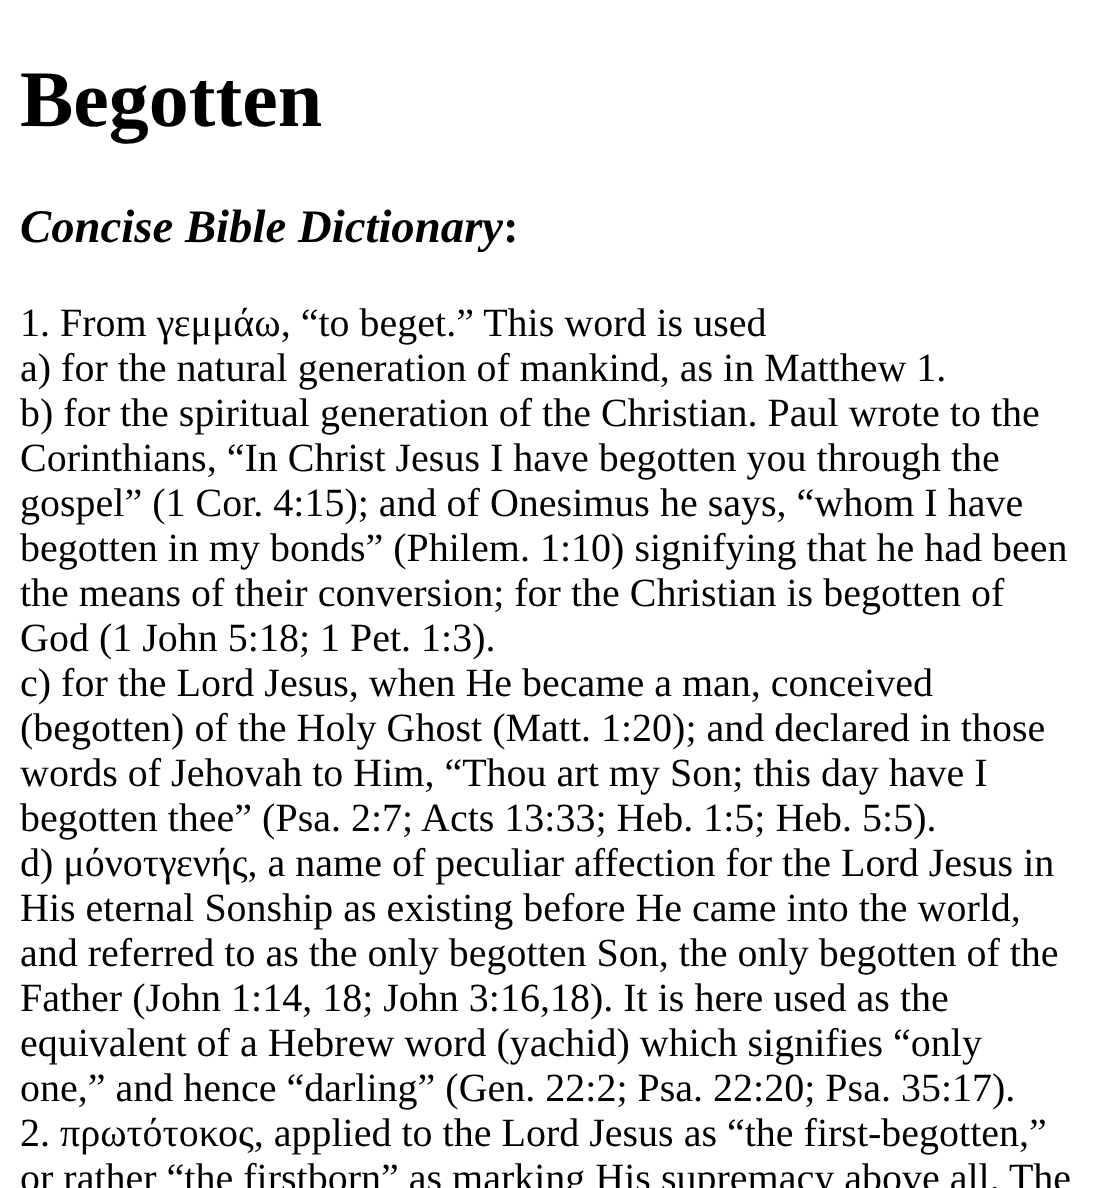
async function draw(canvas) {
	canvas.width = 1094;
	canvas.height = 1188;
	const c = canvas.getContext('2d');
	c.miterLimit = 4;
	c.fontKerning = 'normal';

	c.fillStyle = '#fff';
	c.fillRect(0, 0, 1094, 1188);
	c.font = 'bold 80px Liberation Serif';
	c.fillStyle = '#000';
	c.fillText('Begotten', 20, 126);
	c.font = 'italic bold 46.75px Liberation Serif';
	c.fillText('Concise Bible Dictionary', 20, 242);
	c.font = 'bold 46.75px Liberation Serif';
	c.fillText(':', 503, 242);
	c.font = '40px Liberation Serif';
	for (const [text, x, y] of [
		['1. From γεμμάω, “to beget.” This word is used', 20, 336],
		['a) for the natural generation of mankind, as in Matthew 1.', 20, 381],
		['b) for the spiritual generation of the Christian. Paul wrote to the', 20, 426],
		['Corinthians, “In Christ Jesus I have begotten you through the', 20, 471],
		['gospel” (1 Cor. 4:15); and of Onesimus he says, “whom I have', 20, 516],
		['begotten in my bonds” (Philem. 1:10) signifying that he had been', 20, 561],
		['the means of their conversion; for the Christian is begotten of', 20, 606],
		['God (1 John 5:18; 1 Pet. 1:3).', 20, 651],
		['c) for the Lord Jesus, when He became a man, conceived', 20, 696],
		['(begotten) of the Holy Ghost (Matt. 1:20); and declared in those', 20, 741],
		['words of Jehovah to Him, “Thou art my Son; this day have I', 20, 786],
		['begotten thee” (Psa. 2:7; Acts 13:33; Heb. 1:5; Heb. 5:5).', 20, 831],
		['d) μόνοτγενής, a name of peculiar affection for the Lord Jesus in', 20, 876],
		['His eternal Sonship as existing before He came into the world,', 20, 921],
		['and referred to as the only begotten Son, the only begotten of the', 20, 966],
		['Father (John 1:14, 18; John 3:16,18). It is here used as the', 20, 1011],
		['equivalent of a Hebrew word (yachid) which signifies “only', 20, 1056],
		['one,” and hence “darling” (Gen. 22:2; Psa. 22:20; Psa. 35:17).', 20, 1101],
		['2. πρωτότοκος, applied to the Lord Jesus as “the first-begotten,”', 20, 1146],
		['or rather “the firstborn” as marking His supremacy above all. The', 20, 1191],
	]) {
		c.fillText(text, x, y);
	}
}

draw(document.querySelector('canvas'));
